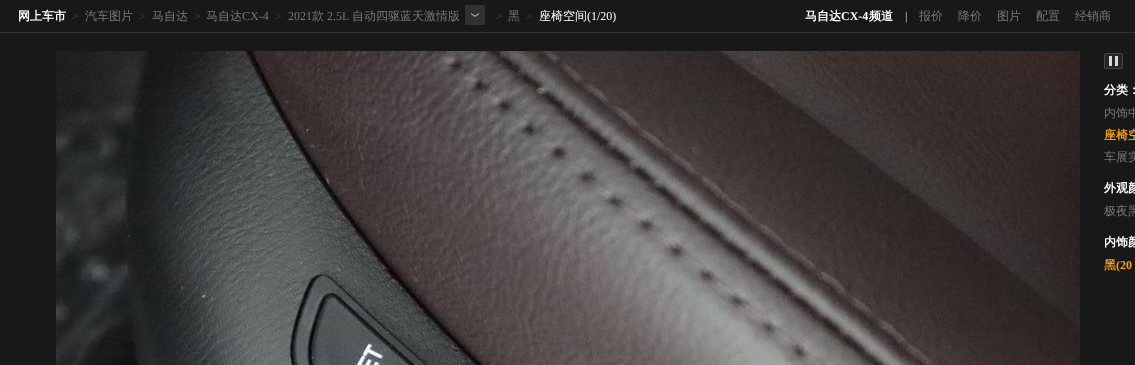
async function draw(canvas) {
	canvas.width = 1135;
	canvas.height = 365;
	const c = canvas.getContext('2d');
	c.miterLimit = 4;
	c.fontKerning = 'normal';
	async function loadImage(src) {
		const img = new Image();
		img.src = src;
		await img.decode();
		return img;
	}

	c.fillStyle = '#181818';
	c.fillRect(0, 0, 1135, 365);
	c.fillStyle = '#333';
	c.fillRect(0, 32, 1135, 1);
	c.font = 'bold 12px WenQuanYi Zen Hei';
	c.fillStyle = '#fff';
	c.fillText('网上车市', 18, 20);
	c.font = '12px Liberation Serif';
	c.fillStyle = '#444';
	c.fillText('>', 72, 20);
	c.font = '500 12px WenQuanYi Zen Hei';
	c.fillStyle = '#777';
	c.fillText('汽车图片', 85, 20);
	c.font = '12px Liberation Serif';
	c.fillStyle = '#444';
	c.fillText('>', 139, 20);
	c.font = '500 12px WenQuanYi Zen Hei';
	c.fillStyle = '#777';
	c.fillText('马自达', 152, 20);
	c.font = '12px Liberation Serif';
	c.fillStyle = '#444';
	c.fillText('>', 194, 20);
	c.font = '500 12px WenQuanYi Zen Hei';
	c.fillStyle = '#777';
	c.fillText('马自达', 206, 20);
	c.font = '12px Liberation Serif';
	c.fillText('CX-4', 242, 20);
	c.fillStyle = '#444';
	c.fillText('>', 275, 20);
	c.fillStyle = '#777';
	c.fillText('2021', 288, 20);
	c.font = '500 12px WenQuanYi Zen Hei';
	c.fillText('款', 312, 20);
	c.font = '12px Liberation Serif';
	c.fillText('2.5L', 327, 20);
	c.font = '500 12px WenQuanYi Zen Hei';
	c.fillText('自动四驱蓝天激情版', 352, 20);
	c.fillStyle = '#313131';
	c.fillRect(465, 5, 20, 20);
	c.drawImage(await loadImage('img1.png'), 471, 13, 8, 4);
	c.font = '12px Liberation Serif';
	c.fillStyle = '#444';
	c.fillText('>', 496, 20);
	c.font = '500 12px WenQuanYi Zen Hei';
	c.fillStyle = '#777';
	c.fillText('黑', 508, 20);
	c.font = '12px Liberation Serif';
	c.fillStyle = '#444';
	c.fillText('>', 526, 20);
	c.font = '500 12px WenQuanYi Zen Hei';
	c.fillStyle = '#fff';
	c.fillText('座椅空间', 539, 20);
	c.font = '12px Liberation Serif';
	c.fillText('(1/20)', 587, 20);
	c.font = 'bold 12px WenQuanYi Zen Hei';
	c.fillText('马自达', 805, 20);
	c.font = 'bold 12px Liberation Serif';
	c.fillText('CX-4', 841, 20);
	c.font = 'bold 12px WenQuanYi Zen Hei';
	c.fillText('频道', 869, 20);
	c.font = '12px Liberation Serif';
	c.fillStyle = '#ddd';
	c.fillText('|', 905, 20);
	c.font = '500 12px WenQuanYi Zen Hei';
	c.fillStyle = '#777';
	for (const [text, x, y] of [
		['报价', 919, 20],
		['降价', 958, 20],
		['图片', 997, 20],
		['配置', 1036, 20],
		['经销商', 1075, 20],
	]) {
		c.fillText(text, x, y);
	}
	c.drawImage(await loadImage('img2.png'), 56, 51, 1024, 314);
	c.drawImage(await loadImage('img3.png'), 1104, 53, 19, 16);
	c.font = 'bold 12px WenQuanYi Zen Hei';
	c.fillStyle = '#fff';
	c.fillText('分类：', 1104, 94);
	c.font = '500 12px WenQuanYi Zen Hei';
	c.fillStyle = '#777';
	c.fillText('内饰中', 1104, 117);
	c.font = 'bold 12px WenQuanYi Zen Hei';
	c.fillStyle = '#ffa103';
	c.fillText('座椅空', 1104, 139);
	c.font = '500 12px WenQuanYi Zen Hei';
	c.fillStyle = '#777';
	c.fillText('车展实', 1104, 161);
	c.font = 'bold 12px WenQuanYi Zen Hei';
	c.fillStyle = '#fff';
	c.fillText('外观颜', 1104, 192);
	c.font = '500 12px WenQuanYi Zen Hei';
	c.fillStyle = '#777';
	c.fillText('极夜黑', 1104, 215);
	c.font = 'bold 12px WenQuanYi Zen Hei';
	c.fillStyle = '#fff';
	c.fillText('内饰颜', 1104, 246);
	c.fillStyle = '#ffa103';
	c.fillText('黑', 1104, 269);
	c.font = 'bold 12px Liberation Serif';
	c.fillText('(20', 1116, 269);
}

draw(document.querySelector('canvas'));
